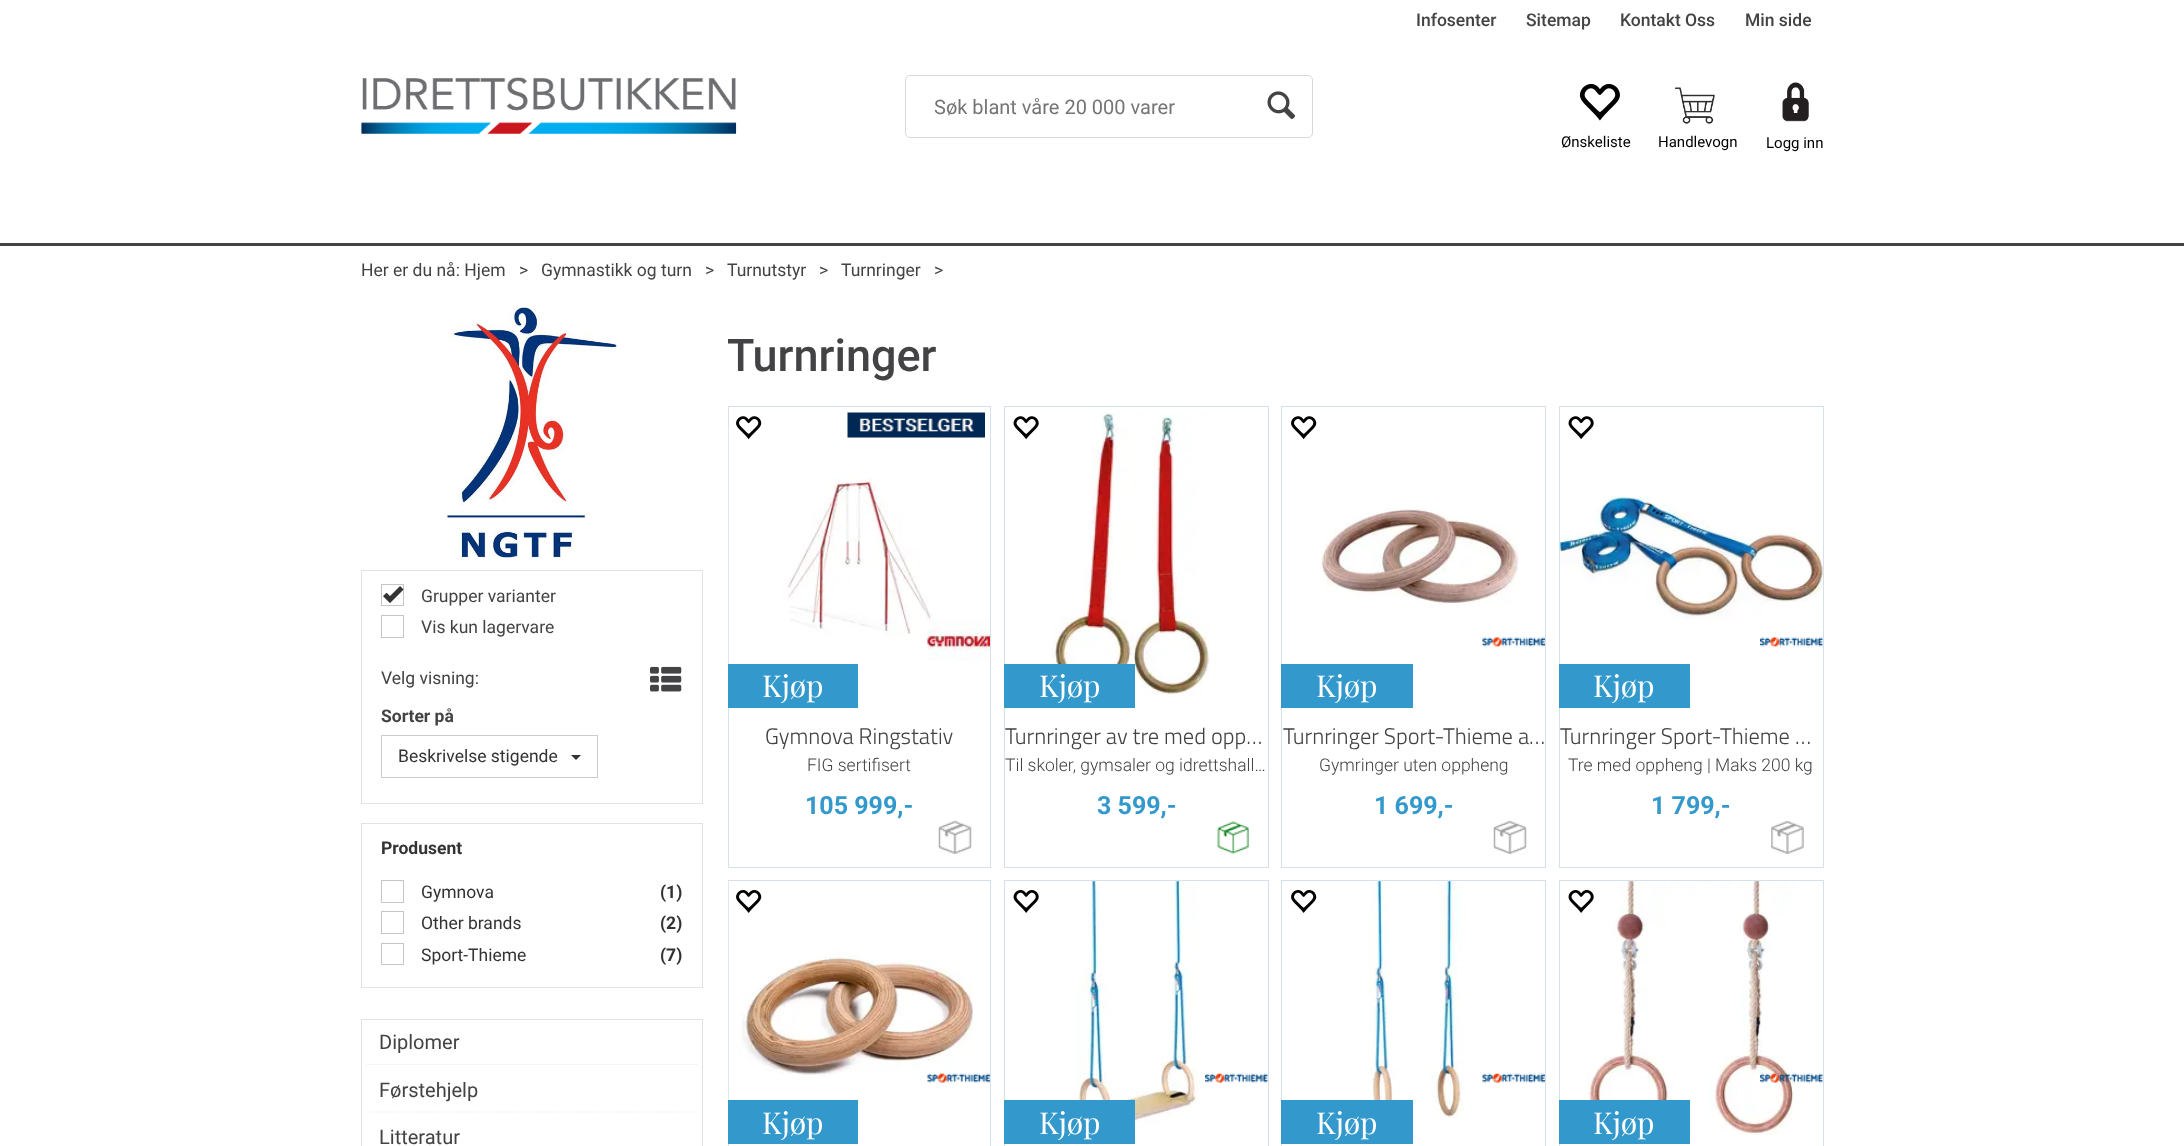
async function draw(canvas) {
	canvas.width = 2184;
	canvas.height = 1146;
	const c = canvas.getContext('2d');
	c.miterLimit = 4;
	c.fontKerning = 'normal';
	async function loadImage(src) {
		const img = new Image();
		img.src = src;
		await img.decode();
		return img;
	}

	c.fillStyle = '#fff';
	c.fillRect(0, 0, 2184, 1146);
	c.font = '500 17.5px Roboto';
	c.fillStyle = '#434244';
	for (const [text, x, y] of [
		['Infosenter', 1416, 26],
		['Sitemap', 1526, 26],
		['Kontakt Oss', 1620, 26],
		['Min side', 1745, 26],
	]) {
		c.fillText(text, x, y);
	}
	c.drawImage(await loadImage('img1.png'), 361, 77, 376, 57);
	c.beginPath();
	c.roundRect(905.5, 75.5, 407, 62, 4.5);
	c.strokeStyle = '#d7d9d9';
	c.stroke();
	c.font = '20px Roboto';
	c.fillStyle = '#757575';
	c.fillText('Søk blant våre 20 000 varer', 934, 114);
	c.drawImage(await loadImage('img2.png'), 1267, 91, 29, 29);
	c.drawImage(await loadImage('img3.png'), 1579, 84, 41, 37);
	c.font = '15px Roboto';
	c.fillStyle = '#000';
	c.fillText('Ønskeliste', 1561, 147);
	c.drawImage(await loadImage('img4.png'), 1675, 87, 40, 37);
	c.fillText('Handlevogn', 1658, 147);
	c.drawImage(await loadImage('img5.png'), 1782, 82, 27, 40);
	c.fillText('Logg inn', 1766, 148);
	c.fillStyle = '#434343';
	c.fillRect(0, 243, 2184, 3);
	c.font = '17.5px Roboto';
	c.fillStyle = '#434244';
	for (const [text, x, y] of [
		['Her er du nå: Hjem', 361, 276],
		['>', 519, 276],
		['Gymnastikk og turn', 541, 276],
		['>', 705, 276],
		['Turnutstyr', 727, 276],
		['>', 819, 276],
		['Turnringer', 841, 276],
		['>', 934, 276],
	]) {
		c.fillText(text, x, y);
	}
	c.drawImage(await loadImage('img6.png'), 447, 307, 170, 251);
	c.strokeStyle = '#e2e2e2';
	c.strokeRect(361.5, 570.5, 341, 233);
	c.strokeStyle = '#c6c6c6';
	c.strokeRect(381.5, 584.5, 22, 21);
	c.drawImage(await loadImage('img7.png'), 383, 586, 21, 17);
	c.fillText('Grupper varianter', 421, 602);
	c.strokeRect(381.5, 615.5, 22, 22);
	c.fillText('Vis kun lagervare', 421, 633);
	c.fillText('Velg visning:', 381, 684);
	c.drawImage(await loadImage('img8.png'), 650, 666, 32, 26);
	c.font = 'bold 17.5px Roboto';
	c.fillText('Sorter på', 381, 722);
	c.strokeStyle = '#ccc';
	c.strokeRect(381.5, 735.5, 216, 42);
	c.font = '17.5px Roboto';
	c.fillStyle = '#333';
	c.fillText('Beskrivelse stigende', 398, 762);
	c.beginPath();
	c.moveTo(571, 755);
	c.lineTo(581, 755);
	c.lineTo(576, 760);
	c.closePath();
	c.fill();
	c.strokeStyle = '#e2e2e2';
	c.strokeRect(361.5, 823.5, 341, 164);
	c.font = 'bold 17.5px Roboto';
	c.fillText('Produsent', 381, 854);
	c.strokeStyle = '#c6c6c6';
	c.strokeRect(381.5, 880.5, 22, 22);
	c.font = '17.5px Roboto';
	c.fillText('Gymnova', 421, 898);
	c.font = 'bold 17.5px Roboto';
	c.fillText('(1)', 660, 898);
	c.strokeRect(381.5, 911.5, 22, 22);
	c.font = '17.5px Roboto';
	c.fillText('Other brands', 421, 929);
	c.font = 'bold 17.5px Roboto';
	c.fillText('(2)', 660, 929);
	c.strokeRect(381.5, 943.5, 22, 21);
	c.font = '17.5px Roboto';
	c.fillText('Sport-Thieme', 421, 961);
	c.font = 'bold 17.5px Roboto';
	c.fillText('(7)', 660, 961);
	c.strokeStyle = '#e2e2e2';
	c.strokeRect(361.5, 1019.5, 341, 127);
	c.beginPath();
	c.moveTo(366, 1064.5);
	c.lineTo(697.5, 1064.5);
	c.strokeStyle = '#eee';
	c.lineWidth = 1.2;
	c.setLineDash([1.25, 1.25]);
	c.stroke();
	c.font = '20px Roboto';
	c.fillStyle = '#434244';
	c.fillText('Diplomer', 379, 1049);
	c.beginPath();
	c.moveTo(366, 1112);
	c.lineTo(697.5, 1112);
	c.stroke();
	c.fillText('Førstehjelp', 379, 1097);
	c.fillText('Litteratur', 379, 1144);
	c.save();
	c.beginPath();
	c.rect(728, 308, 1096, 86);
	c.clip();
	c.font = '500 45px Roboto';
	c.fillText('Turnringer', 727, 371);
	c.restore();
	c.strokeStyle = '#d4e0ec';
	c.lineWidth = 1;
	c.setLineDash([]);
	c.strokeRect(728.5, 406.5, 262, 461);
	c.drawImage(await loadImage('img11.png'), 728, 426, 205, 263);
	c.drawImage(await loadImage('img9.png'), 736, 416, 26, 24);
	c.drawImage(await loadImage('img10.png'), 847, 412, 138, 26);
	c.drawImage(await loadImage('img12.png'), 927, 620, 63, 41);
	c.fillStyle = '#39c';
	c.fillRect(728, 664, 130, 44);
	c.font = '30px Playfair Display';
	c.fillStyle = '#fff';
	c.fillText('Kjøp', 762, 697);
	c.font = '300 22.5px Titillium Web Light';
	c.fillStyle = '#434244';
	c.fillText('Gymnova Ringstativ', 765, 744);
	c.font = '300 17.5px Roboto';
	c.fillText('FIG sertifisert', 807, 771);
	c.font = 'bold 25px Roboto';
	c.fillStyle = '#39c';
	c.fillText('105 999,-', 805, 814);
	c.drawImage(await loadImage('img13.png'), 938, 821, 34, 33);
	c.strokeRect(1004.5, 406.5, 264, 461);
	c.drawImage(await loadImage('img14.png'), 1013, 416, 26, 24);
	c.drawImage(await loadImage('img15.png'), 1052, 412, 158, 285);
	c.fillRect(1004, 664, 131, 44);
	c.font = '30px Playfair Display';
	c.fillStyle = '#fff';
	c.fillText('Kjøp', 1039, 697);
	c.font = '300 22.5px Titillium Web Light';
	c.fillStyle = '#434244';
	c.fillText('Turnringer av tre med opp…', 1005, 744);
	c.font = '300 17.5px Roboto';
	c.fillText('Til skoler, gymsaler og idrettshall…', 1005, 771);
	c.font = 'bold 25px Roboto';
	c.fillStyle = '#39c';
	c.fillText('3 599,-', 1097, 814);
	c.drawImage(await loadImage('img16.png'), 1217, 821, 32, 33);
	c.strokeRect(1281.5, 406.5, 264, 461);
	c.drawImage(await loadImage('img9.png'), 1291, 416, 26, 24);
	c.drawImage(await loadImage('img17.png'), 1321, 509, 198, 96);
	c.drawImage(await loadImage('img18.png'), 1482, 637, 63, 10);
	c.fillRect(1281, 664, 132, 44);
	c.font = '30px Playfair Display';
	c.fillStyle = '#fff';
	c.fillText('Kjøp', 1316, 697);
	c.font = '300 22.5px Titillium Web Light';
	c.fillStyle = '#434244';
	c.fillText('Turnringer Sport-Thieme a…', 1283, 744);
	c.font = '300 17.5px Roboto';
	c.fillText('Gymringer uten oppheng', 1319, 771);
	c.font = 'bold 25px Roboto';
	c.fillStyle = '#39c';
	c.fillText('1 699,-', 1374, 814);
	c.drawImage(await loadImage('img19.png'), 1493, 821, 34, 33);
	c.strokeRect(1559.5, 406.5, 264, 461);
	c.drawImage(await loadImage('img14.png'), 1568, 416, 26, 24);
	c.drawImage(await loadImage('img20.png'), 1560, 495, 263, 126);
	c.drawImage(await loadImage('img21.png'), 1760, 637, 63, 10);
	c.fillRect(1559, 664, 131, 44);
	c.font = '30px Playfair Display';
	c.fillStyle = '#fff';
	c.fillText('Kjøp', 1593, 697);
	c.font = '300 22.5px Titillium Web Light';
	c.fillStyle = '#434244';
	c.fillText('Turnringer Sport-Thieme …', 1560, 744);
	c.font = '300 17.5px Roboto';
	c.fillText('Tre med oppheng | Maks 200 kg', 1568, 771);
	c.font = 'bold 25px Roboto';
	c.fillStyle = '#39c';
	c.fillText('1 799,-', 1651, 814);
	c.drawImage(await loadImage('img22.png'), 1771, 821, 33, 33);
	c.strokeRect(728.5, 880.5, 262, 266);
	c.drawImage(await loadImage('img24.png'), 728, 881, 245, 263);
	c.drawImage(await loadImage('img23.png'), 736, 890, 26, 23);
	c.drawImage(await loadImage('img25.png'), 927, 1073, 63, 10);
	c.fillRect(728, 1100, 130, 44);
	c.font = '30px Playfair Display';
	c.fillStyle = '#fff';
	c.fillText('Kjøp', 762, 1134);
	c.strokeRect(1004.5, 880.5, 264, 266);
	c.drawImage(await loadImage('img26.png'), 1013, 890, 26, 23);
	c.drawImage(await loadImage('img27.png'), 1075, 881, 123, 251);
	c.drawImage(await loadImage('img28.png'), 1205, 1073, 63, 10);
	c.fillStyle = '#39c';
	c.fillRect(1004, 1100, 131, 44);
	c.fillStyle = '#fff';
	c.fillText('Kjøp', 1039, 1134);
	c.strokeRect(1281.5, 880.5, 264, 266);
	c.drawImage(await loadImage('img23.png'), 1291, 890, 26, 23);
	c.drawImage(await loadImage('img29.png'), 1369, 881, 97, 238);
	c.drawImage(await loadImage('img30.png'), 1482, 1073, 63, 10);
	c.fillStyle = '#39c';
	c.fillRect(1281, 1100, 132, 44);
	c.fillStyle = '#fff';
	c.fillText('Kjøp', 1316, 1134);
	c.strokeRect(1559.5, 880.5, 264, 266);
	c.drawImage(await loadImage('img31.png'), 1586, 881, 210, 254);
	c.drawImage(await loadImage('img26.png'), 1568, 890, 26, 23);
	c.drawImage(await loadImage('img32.png'), 1760, 1073, 63, 10);
	c.fillStyle = '#39c';
	c.fillRect(1559, 1100, 131, 44);
	c.fillStyle = '#fff';
	c.fillText('Kjøp', 1593, 1134);
}

draw(document.querySelector('canvas'));
